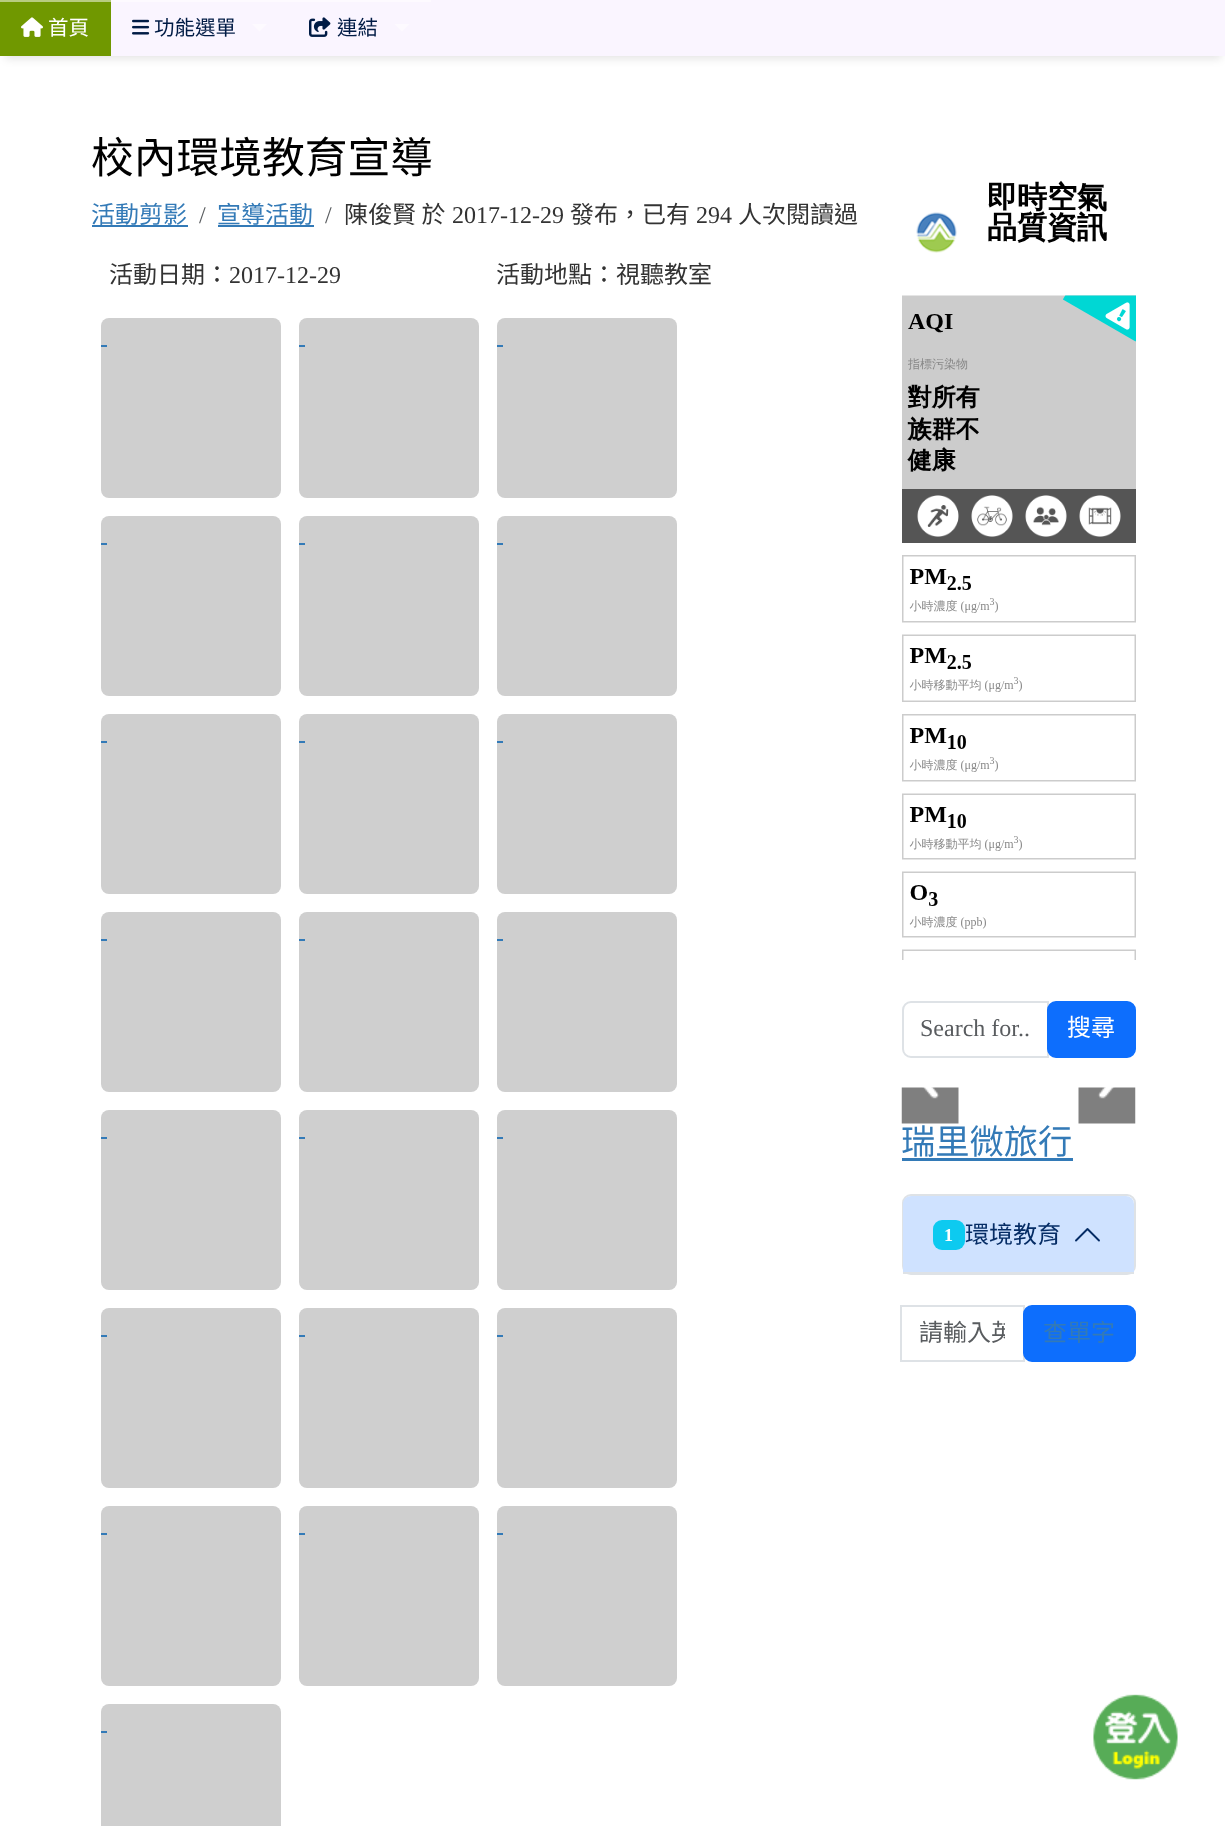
async function draw(canvas) {
	canvas.width = 1225;
	canvas.height = 1826;
	const c = canvas.getContext('2d');
	c.miterLimit = 4;
	c.fontKerning = 'normal';
	async function loadImage(src) {
		const img = new Image();
		img.src = src;
		await img.decode();
		return img;
	}

	c.fillStyle = '#fff';
	c.fillRect(0, 0, 1225, 1826);
	c.fillStyle = '#0000001a';
	c.filter = 'blur(4px)';
	c.beginPath();
	c.rect(5, 12, 1216, 47);
	c.fill();
	c.filter = 'none';
	for (const [x, y, w, h, color] of [
		[111, 0, 1114, 56, '#faf5ff'],
		[0, 2, 111, 54, '#709800'],
		[0, 0, 111, 2, '#b8cc80'],
	]) {
		c.fillStyle = color;
		c.fillRect(x, y, w, h);
	}
	c.drawImage(await loadImage('img1.png'), 21, 17, 22, 20);
	c.font = '20.5px Noto Sans CJK TC';
	c.fillStyle = '#fff';
	c.fillText('首頁', 48, 35);
	c.fillStyle = '#fdfaff';
	c.fillRect(111, 0, 320, 2);
	c.drawImage(await loadImage('img2.png'), 132, 19, 18, 16);
	c.fillStyle = '#001b45';
	c.fillText('功能選單', 154, 35);
	c.fillStyle = '#fdfaff';
	c.beginPath();
	c.moveTo(252, 24);
	c.lineTo(267, 24);
	c.lineTo(259.5, 31.5);
	c.closePath();
	c.fill();
	c.drawImage(await loadImage('img3.png'), 309, 17, 22, 20);
	c.fillStyle = '#001b45';
	c.fillText('連結', 337, 35);
	c.fillStyle = '#fdfaff';
	c.beginPath();
	c.moveTo(394.5, 24);
	c.lineTo(409.5, 24);
	c.lineTo(402, 31.5);
	c.closePath();
	c.fill();
	c.font = '42.75px Noto Sans CJK TC';
	c.fillStyle = '#000';
	c.fillText('校內環境教育宣導', 91, 173);
	c.font = '24px Noto Sans CJK TC';
	c.fillStyle = '#337ab7';
	c.fillText('活動剪影', 91, 223);
	c.fillRect(92, 225, 96, 2);
	c.font = '24px Liberation Serif';
	c.fillStyle = '#595c5f';
	c.fillText('/', 199, 223);
	c.font = '24px Noto Sans CJK TC';
	c.fillStyle = '#337ab7';
	c.fillText('宣導活動', 217, 223);
	c.fillRect(218, 225, 96, 2);
	c.font = '24px Liberation Serif';
	c.fillStyle = '#595c5f';
	c.fillText('/', 325, 223);
	c.font = '24px Noto Sans CJK TC';
	c.fillStyle = '#333';
	c.fillText('陳俊賢 於', 344, 223);
	c.font = '24px Liberation Serif';
	c.fillText('2017-12-29', 452, 223);
	c.font = '24px Noto Sans CJK TC';
	c.fillText('發布，已有', 570, 223);
	c.font = '24px Liberation Serif';
	c.fillText('294', 696, 223);
	c.font = '24px Noto Sans CJK TC';
	c.fillText('人次閱讀過', 738, 223);
	c.fillText('活動日期：', 109, 283);
	c.font = '24px Liberation Serif';
	c.fillText('2017-12-29', 229, 283);
	c.font = '24px Noto Sans CJK TC';
	c.fillText('活動地點：視聽教室', 496, 283);
	c.fillStyle = '#cfcfcf';
	c.beginPath();
	c.roundRect(101, 318, 180, 180, 8);
	c.fill();
	c.fillStyle = '#337ab7';
	c.fillRect(101, 345, 6, 2);
	c.fillStyle = '#cfcfcf';
	c.beginPath();
	c.roundRect(299, 318, 180, 180, 8);
	c.fill();
	c.fillStyle = '#337ab7';
	c.fillRect(299, 345, 6, 2);
	c.fillStyle = '#cfcfcf';
	c.beginPath();
	c.roundRect(497, 318, 180, 180, 8);
	c.fill();
	c.fillStyle = '#337ab7';
	c.fillRect(497, 345, 6, 2);
	c.fillStyle = '#cfcfcf';
	c.beginPath();
	c.roundRect(101, 516, 180, 180, 8);
	c.fill();
	c.fillStyle = '#337ab7';
	c.fillRect(101, 543, 6, 2);
	c.fillStyle = '#cfcfcf';
	c.beginPath();
	c.roundRect(299, 516, 180, 180, 8);
	c.fill();
	c.fillStyle = '#337ab7';
	c.fillRect(299, 543, 6, 2);
	c.fillStyle = '#cfcfcf';
	c.beginPath();
	c.roundRect(497, 516, 180, 180, 8);
	c.fill();
	c.fillStyle = '#337ab7';
	c.fillRect(497, 543, 6, 2);
	c.fillStyle = '#cfcfcf';
	c.beginPath();
	c.roundRect(101, 714, 180, 180, 8);
	c.fill();
	c.fillStyle = '#337ab7';
	c.fillRect(101, 741, 6, 2);
	c.fillStyle = '#cfcfcf';
	c.beginPath();
	c.roundRect(299, 714, 180, 180, 8);
	c.fill();
	c.fillStyle = '#337ab7';
	c.fillRect(299, 741, 6, 2);
	c.fillStyle = '#cfcfcf';
	c.beginPath();
	c.roundRect(497, 714, 180, 180, 8);
	c.fill();
	c.fillStyle = '#337ab7';
	c.fillRect(497, 741, 6, 2);
	c.fillStyle = '#cfcfcf';
	c.beginPath();
	c.roundRect(101, 912, 180, 180, 8);
	c.fill();
	c.fillStyle = '#337ab7';
	c.fillRect(101, 939, 6, 2);
	c.fillStyle = '#cfcfcf';
	c.beginPath();
	c.roundRect(299, 912, 180, 180, 8);
	c.fill();
	c.fillStyle = '#337ab7';
	c.fillRect(299, 939, 6, 2);
	c.fillStyle = '#cfcfcf';
	c.beginPath();
	c.roundRect(497, 912, 180, 180, 8);
	c.fill();
	c.fillStyle = '#337ab7';
	c.fillRect(497, 939, 6, 2);
	c.fillStyle = '#cfcfcf';
	c.beginPath();
	c.roundRect(101, 1110, 180, 180, 8);
	c.fill();
	c.fillStyle = '#337ab7';
	c.fillRect(101, 1137, 6, 2);
	c.fillStyle = '#cfcfcf';
	c.beginPath();
	c.roundRect(299, 1110, 180, 180, 8);
	c.fill();
	c.fillStyle = '#337ab7';
	c.fillRect(299, 1137, 6, 2);
	c.fillStyle = '#cfcfcf';
	c.beginPath();
	c.roundRect(497, 1110, 180, 180, 8);
	c.fill();
	c.fillStyle = '#337ab7';
	c.fillRect(497, 1137, 6, 2);
	c.fillStyle = '#cfcfcf';
	c.beginPath();
	c.roundRect(101, 1308, 180, 180, 8);
	c.fill();
	c.fillStyle = '#337ab7';
	c.fillRect(101, 1335, 6, 2);
	c.fillStyle = '#cfcfcf';
	c.beginPath();
	c.roundRect(299, 1308, 180, 180, 8);
	c.fill();
	c.fillStyle = '#337ab7';
	c.fillRect(299, 1335, 6, 2);
	c.fillStyle = '#cfcfcf';
	c.beginPath();
	c.roundRect(497, 1308, 180, 180, 8);
	c.fill();
	c.fillStyle = '#337ab7';
	c.fillRect(497, 1335, 6, 2);
	c.fillStyle = '#cfcfcf';
	c.beginPath();
	c.roundRect(101, 1506, 180, 180, 8);
	c.fill();
	c.fillStyle = '#337ab7';
	c.fillRect(101, 1533, 6, 2);
	c.fillStyle = '#cfcfcf';
	c.beginPath();
	c.roundRect(299, 1506, 180, 180, 8);
	c.fill();
	c.fillStyle = '#337ab7';
	c.fillRect(299, 1533, 6, 2);
	c.fillStyle = '#cfcfcf';
	c.beginPath();
	c.roundRect(497, 1506, 180, 180, 8);
	c.fill();
	c.fillStyle = '#337ab7';
	c.fillRect(497, 1533, 6, 2);
	c.fillStyle = '#cfcfcf';
	c.beginPath();
	c.roundRect(101, 1704, 180, 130, 8);
	c.fill();
	c.fillStyle = '#337ab7';
	c.fillRect(101, 1731, 6, 2);
	c.drawImage(await loadImage('img4.png'), 902, 180, 234, 780);
	c.beginPath();
	c.roundRect(903, 1002, 145, 55, [8, 0, 0, 8]);
	c.strokeStyle = '#dee2e6';
	c.lineWidth = 2;
	c.stroke();
	c.font = '24px Liberation Serif';
	c.fillStyle = '#595c5f';
	c.fillText('Search for..', 920, 1036);
	c.fillStyle = '#0d6efd';
	c.beginPath();
	c.roundRect(1048, 1002, 87, 55, 8);
	c.fill();
	c.strokeStyle = '#0d6efd';
	c.stroke();
	c.font = '24px Noto Sans CJK TC';
	c.fillStyle = '#fff';
	c.fillText('搜尋', 1067, 1036);
	c.drawImage(await loadImage('img5.png'), 901, 1087, 58, 37);
	c.drawImage(await loadImage('img6.png'), 1078, 1087, 58, 37);
	c.font = '34.25px Noto Sans CJK TC';
	c.fillStyle = '#337ab7';
	c.fillText('瑞里微旅行', 901, 1154);
	c.fillRect(902, 1158, 171, 3);
	c.beginPath();
	c.roundRect(903, 1195, 232, 79, 8);
	c.strokeStyle = '#dee2e6';
	c.stroke();
	c.fillStyle = '#cfe2ff';
	c.beginPath();
	c.roundRect(903, 1196, 231, 78, [8, 8, 0, 0]);
	c.fill();
	c.fillStyle = '#dee2e6';
	c.fillRect(903, 1272, 231, 2);
	c.fillStyle = '#0dcaf0';
	c.beginPath();
	c.roundRect(933, 1220, 32, 30, 9);
	c.fill();
	c.font = 'bold 18px Liberation Serif';
	c.fillStyle = '#fff';
	c.fillText('1', 944, 1241);
	c.font = '24px Noto Sans CJK TC';
	c.fillStyle = '#052c65';
	c.fillText('環境教育', 965, 1243);
	c.beginPath();
	c.moveTo(1099, 1240.5);
	c.lineTo(1087.5, 1229);
	c.lineTo(1076, 1240.5);
	c.strokeStyle = '#052c65';
	c.lineWidth = 1.9;
	c.lineCap = 'round';
	c.lineJoin = 'round';
	c.stroke();
	c.strokeStyle = '#dee2e6';
	c.lineWidth = 2;
	c.lineJoin = 'miter';
	c.strokeRect(901, 1306, 123, 55);
	c.save();
	c.beginPath();
	c.rect(920, 1313, 85, 36);
	c.clip();
	c.fillStyle = '#595c5f';
	c.fillText('請輸入英', 919, 1341);
	c.restore();
	c.fillStyle = '#0d6efd';
	c.beginPath();
	c.roundRect(1024, 1306, 111, 55, 8);
	c.fill();
	c.strokeStyle = '#0d6efd';
	c.stroke();
	c.fillStyle = '#337ab7';
	c.fillText('查單字', 1043, 1341);
	c.drawImage(await loadImage('img7.png'), 1093, 1694, 85, 86);
}

draw(document.querySelector('canvas'));
